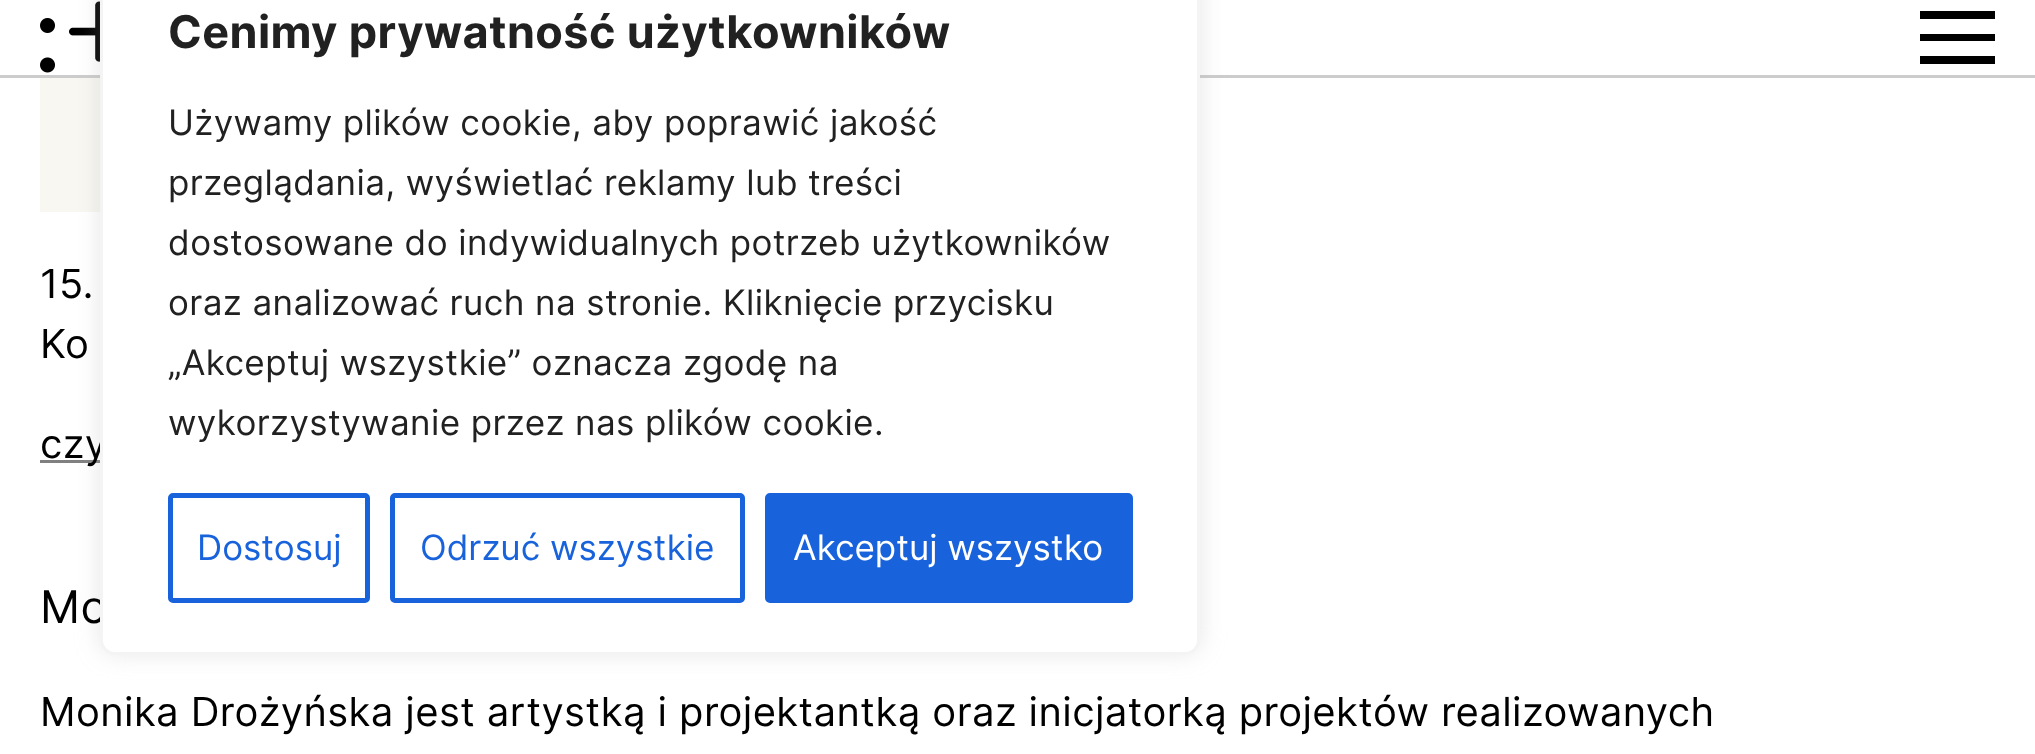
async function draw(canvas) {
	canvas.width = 2035;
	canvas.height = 754;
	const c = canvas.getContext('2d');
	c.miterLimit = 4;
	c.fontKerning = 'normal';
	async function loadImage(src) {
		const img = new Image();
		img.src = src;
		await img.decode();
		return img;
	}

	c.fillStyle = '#fff';
	c.fillRect(0, 0, 2035, 754);
	c.fillStyle = '#ccc';
	c.fillRect(0, 75, 2035, 3);
	c.drawImage(await loadImage('img1.png'), 40, 1, 60, 72);
	for (const [x, y, w, h, color] of [
		[1920, 11, 75, 8, '#000'],
		[1920, 56, 75, 8, '#000'],
		[1920, 34, 75, 7, '#000'],
	]) {
		c.fillStyle = color;
		c.fillRect(x, y, w, h);
	}
	c.drawImage(await loadImage('img2.png'), 40, 78, 60, 134);
	c.fillStyle = '#808080';
	c.fillRect(40, 460, 60, 3);
	c.fillStyle = '#acabab4d';
	c.filter = 'blur(12.5px)';
	c.beginPath();
	c.roundRect(100, -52, 1100, 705, 15);
	c.fill();
	c.filter = 'none';
	c.letterSpacing = '0.4px';
	c.font = '40px Inter';
	c.fillStyle = '#000';
	c.fillText('czy', 40, 458);
	c.font = '45px Inter';
	c.fillText('Mo', 40, 623);
	c.fillStyle = '#fff';
	c.beginPath();
	c.roundRect(101.5, -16.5, 1097, 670, 13.5);
	c.fill();
	c.strokeStyle = '#f4f4f4';
	c.lineWidth = 3;
	c.stroke();
	c.font = 'bold 45px Inter';
	c.fillStyle = '#212121';
	c.fillText('Cenimy prywatność użytkowników', 168, 48);
	c.font = '35px Inter';
	for (const [text, x, y] of [
		['Używamy plików cookie, aby poprawić jakość', 168, 135],
		['przeglądania, wyświetlać reklamy lub treści', 168, 195],
		['dostosowane do indywidualnych potrzeb użytkowników', 168, 255],
		['oraz analizować ruch na stronie. Kliknięcie przycisku', 168, 315],
		['„Akceptuj wszystkie” oznacza zgodę na', 168, 375],
		['wykorzystywanie przez nas plików cookie.', 168, 435],
	]) {
		c.fillText(text, x, y);
	}
	c.beginPath();
	c.roundRect(170.5, 495.5, 197, 105, 2.5);
	c.strokeStyle = '#1863dc';
	c.lineWidth = 5;
	c.stroke();
	c.letterSpacing = '0px';
	c.fillStyle = '#1863dc';
	c.fillText('Dostosuj', 197, 560);
	c.beginPath();
	c.roundRect(392.5, 495.5, 350, 105, 2.5);
	c.stroke();
	c.fillText('Odrzuć wszystkie', 420, 560);
	c.beginPath();
	c.roundRect(767.5, 495.5, 363, 105, 2.5);
	c.fill();
	c.stroke();
	c.fillStyle = '#fff';
	c.fillText('Akceptuj wszystko', 793, 560);
	c.letterSpacing = '0.4px';
	c.font = '40px Inter';
	c.fillStyle = '#000';
	for (const [text, x, y] of [
		['15.', 40, 298],
		['Ko', 40, 358],
		['Monika Drożyńska jest artystką i projektantką oraz inicjatorką projektów realizowanych', 40, 726],
	]) {
		c.fillText(text, x, y);
	}
}

draw(document.querySelector('canvas'));
